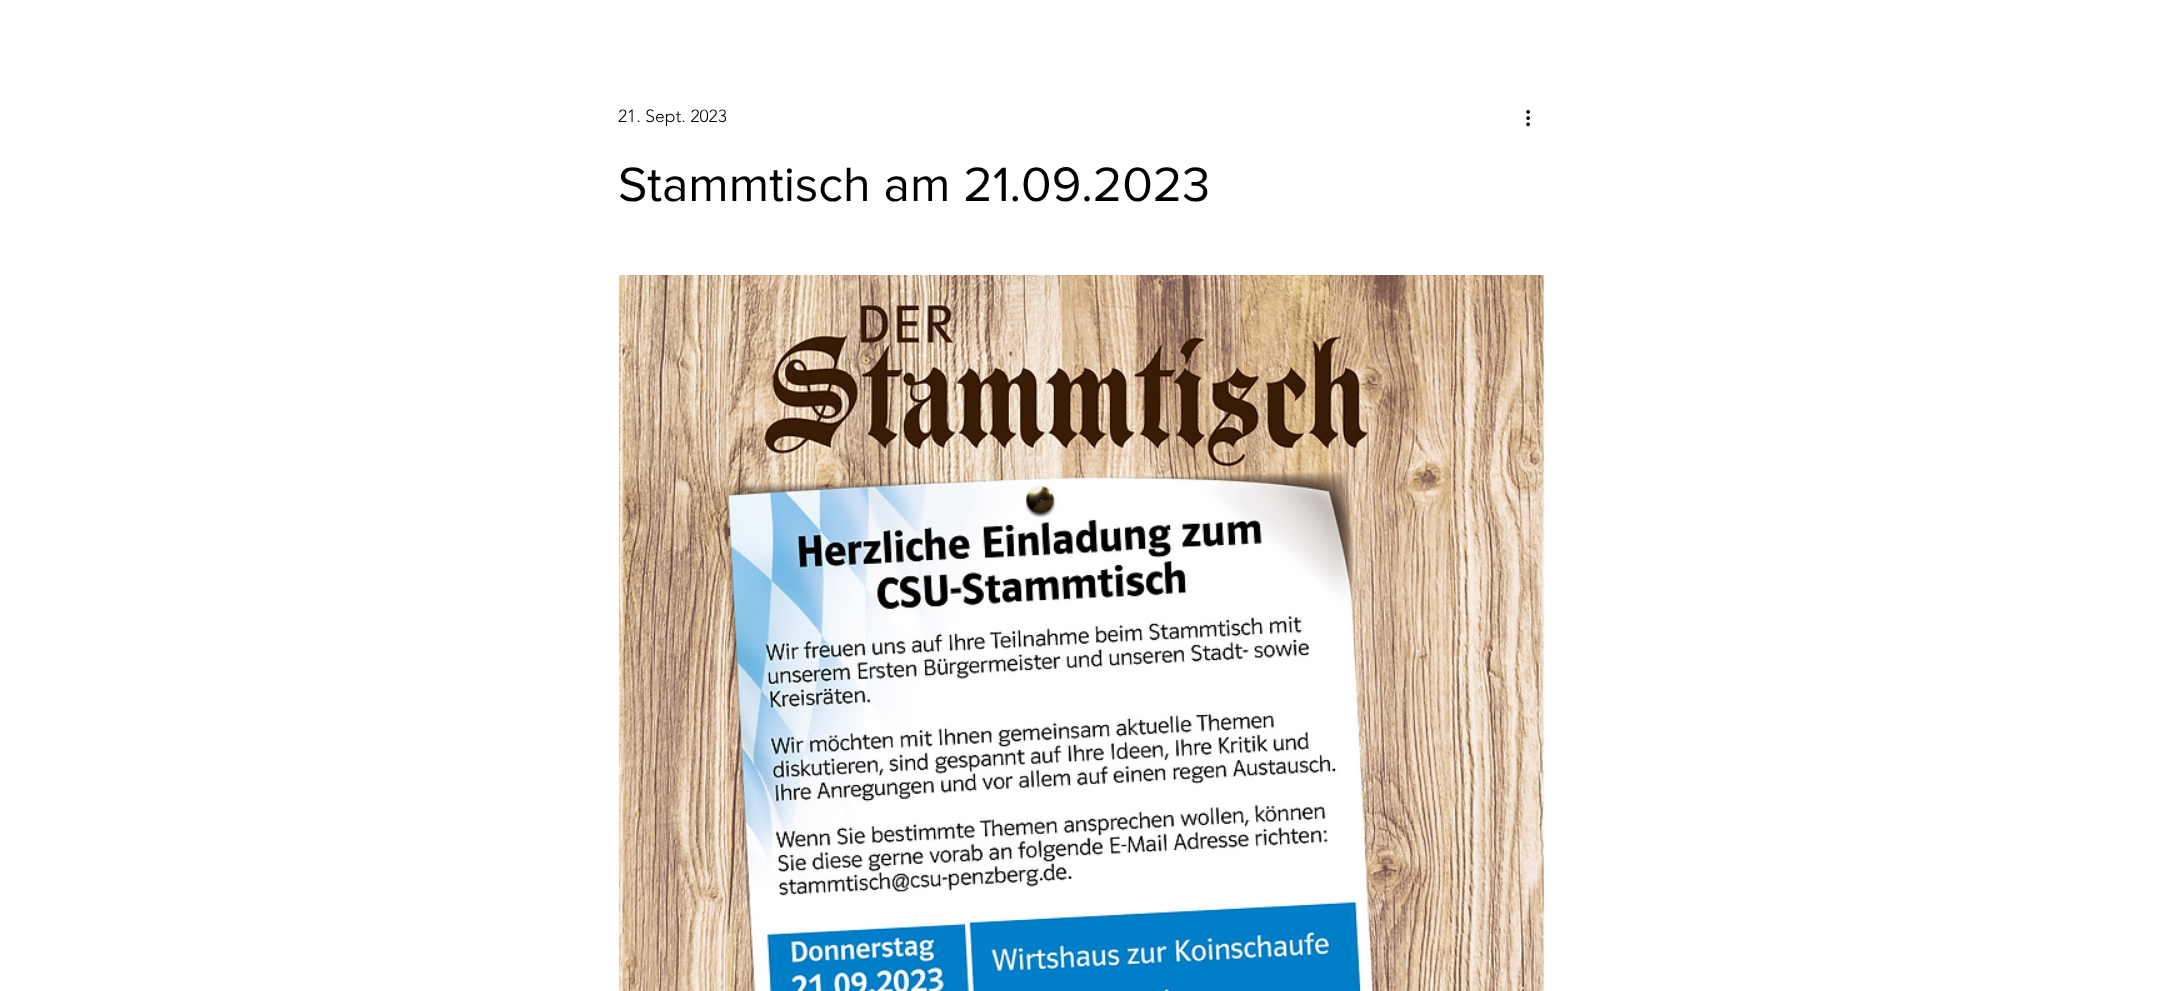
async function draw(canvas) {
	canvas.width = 2161;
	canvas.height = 991;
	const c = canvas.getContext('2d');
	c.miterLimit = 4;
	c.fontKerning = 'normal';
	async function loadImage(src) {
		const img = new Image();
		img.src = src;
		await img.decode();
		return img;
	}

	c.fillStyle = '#fff';
	c.fillRect(0, 0, 2161, 991);
	c.font = '300 17.5px "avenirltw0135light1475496"';
	c.fillStyle = '#000';
	c.fillText('21. Sept. 2023', 618, 122);
	c.drawImage(await loadImage('img1.png'), 1526, 110, 4, 17);
	c.font = '50px "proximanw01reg"';
	c.fillText('Stammtisch am 21.09.2023', 618, 201);
	c.drawImage(await loadImage('img2.png'), 618, 275, 926, 716);
}

draw(document.querySelector('canvas'));
